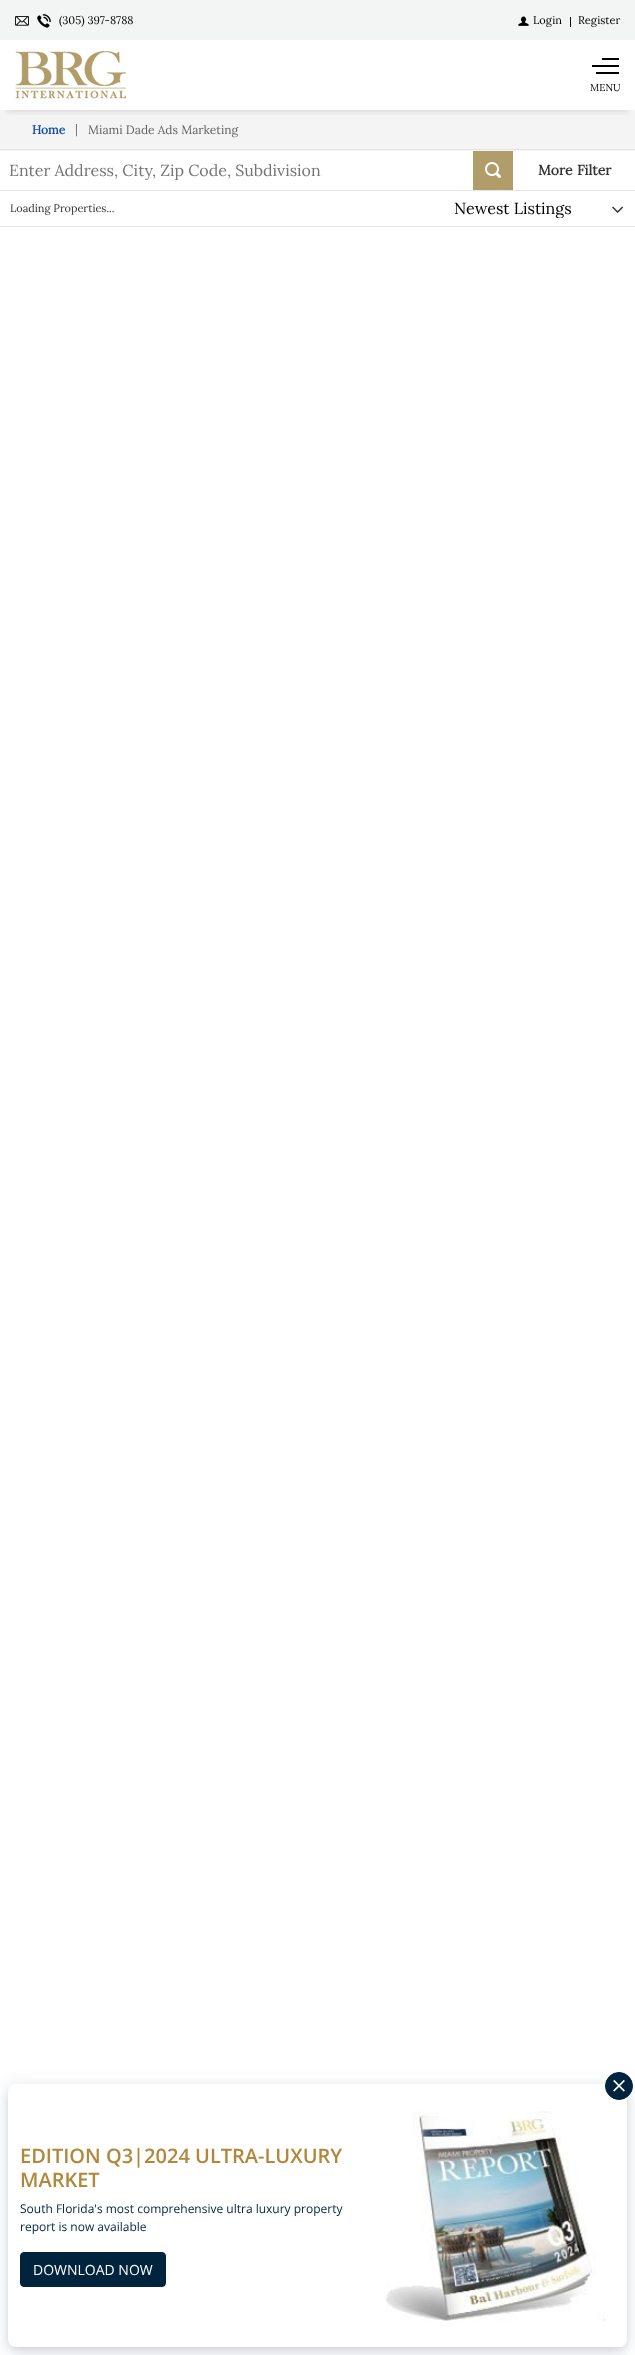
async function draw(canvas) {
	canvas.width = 635;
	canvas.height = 2355;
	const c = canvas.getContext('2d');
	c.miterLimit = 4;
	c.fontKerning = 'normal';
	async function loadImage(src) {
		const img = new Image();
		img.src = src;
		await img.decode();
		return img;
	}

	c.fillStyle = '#fff';
	c.fillRect(0, 0, 635, 2355);
	c.fillStyle = '#f4f4f4';
	c.fillRect(0, 110, 635, 39);
	c.save();
	c.beginPath();
	c.rect(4, 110, 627, 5);
	c.clip();
	c.fillStyle = '#0000001a';
	c.filter = 'blur(3px)';
	c.beginPath();
	c.rect(6, 14, 623, 98);
	c.fill();
	c.filter = 'none';
	c.restore();
	c.fillStyle = '#f3f4f4';
	c.fillRect(0, 0, 635, 40);
	c.drawImage(await loadImage('img1.png'), 15, 16, 14, 10);
	c.drawImage(await loadImage('img2.png'), 37, 14, 14, 14);
	c.font = '11px Lora';
	c.fillStyle = '#000';
	c.fillText('(305) 397-8788', 59, 24);
	c.drawImage(await loadImage('img3.png'), 518, 16, 11, 10);
	c.fillText('Login', 533, 24);
	c.fillRect(570, 17, 1, 10);
	c.fillText('Register', 578, 24);
	c.drawImage(await loadImage('img4.png'), 15, 51, 111, 48);
	for (const [x, y, w, h, color] of [
		[602, 58, 17, 2, '#000'],
		[592, 65, 27, 2, '#000'],
		[596, 72, 23, 2, '#000'],
	]) {
		c.fillStyle = color;
		c.fillRect(x, y, w, h);
	}
	c.font = '10px Lora';
	c.fillText('MENU', 590, 91);
	c.font = 'bold 12px Lora';
	c.fillStyle = '#0f4aac';
	c.fillText('Home', 32, 134);
	c.font = '12px Lora';
	c.fillStyle = '#626262';
	c.fillText('|', 75, 133);
	c.fillText('Miami Dade Ads Marketing', 88, 134);
	for (const [x, y, w, h, color] of [
		[0, 150, 635, 1, '#f4f4f4'],
		[0, 149, 635, 1, '#e5e5e5'],
		[0, 190, 635, 1, '#e5e5e5'],
	]) {
		c.fillStyle = color;
		c.fillRect(x, y, w, h);
	}
	c.save();
	c.beginPath();
	c.rect(9, 160, 440, 20);
	c.clip();
	c.font = '16px Lora';
	c.fillStyle = '#757575';
	c.fillText('Enter Address, City, Zip Code, Subdivision', 9, 176);
	c.restore();
	c.fillStyle = '#b09d69';
	c.fillRect(473, 151, 40, 39);
	c.drawImage(await loadImage('img5.png'), 485, 162, 16, 16);
	c.font = 'bold 14px Lora';
	c.fillStyle = '#333';
	c.fillText('More', 538, 175);
	c.fillText('Filter', 577, 175);
	c.fillStyle = '#e5e5e5';
	c.fillRect(0, 226, 635, 1);
	c.font = '10.9px Lora';
	c.fillStyle = '#333';
	c.fillText('Loading Properties...', 10, 212);
	c.save();
	c.beginPath();
	c.rect(454, 198, 149, 20);
	c.clip();
	c.font = '16px Lora';
	c.fillStyle = '#000';
	c.fillText('Newest Listings', 454, 214);
	c.restore();
	c.drawImage(await loadImage('img6.png'), 612, 206, 12, 7);
	c.fillStyle = '#1d11331f';
	c.filter = 'blur(5px)';
	c.beginPath();
	c.roundRect(11, 2092, 613, 257, 5);
	c.fill();
	c.filter = 'none';
	c.fillStyle = '#09204d1f';
	c.filter = 'blur(8px)';
	c.beginPath();
	c.roundRect(6, 2085, 623, 267, 10);
	c.fill();
	c.filter = 'none';
	c.fillStyle = '#fff';
	c.beginPath();
	c.roundRect(8, 2084, 619, 263, 8);
	c.fill();
	c.fillStyle = '#00243e';
	c.beginPath();
	c.arc(619, 2086, 13.5, 0, 2 * Math.PI);
	c.fill();
	c.strokeStyle = '#00243e';
	c.stroke();
	c.drawImage(await loadImage('img7.png'), 613, 2079, 12, 13);
	c.font = '600 20px Open Sans';
	c.fillStyle = '#b2873a';
	c.fillText('EDITION Q3|2024 ULTRA-LUXURY', 20, 2163);
	c.fillText('MARKET', 20, 2187);
	c.font = '12px Open Sans';
	c.fillStyle = '#00243e';
	c.fillText('South Florida\'s most comprehensive ultra luxury property', 20, 2213);
	c.fillText('report is now available', 20, 2231);
	c.beginPath();
	c.roundRect(20.5, 2252.5, 145, 34, 3.5);
	c.fill();
	c.stroke();
	c.font = '14px Open Sans';
	c.fillStyle = '#fff';
	c.fillText('DOWNLOAD NOW', 33, 2275);
	c.drawImage(await loadImage('img8.png'), 386, 2111, 237, 236);
}

draw(document.querySelector('canvas'));
